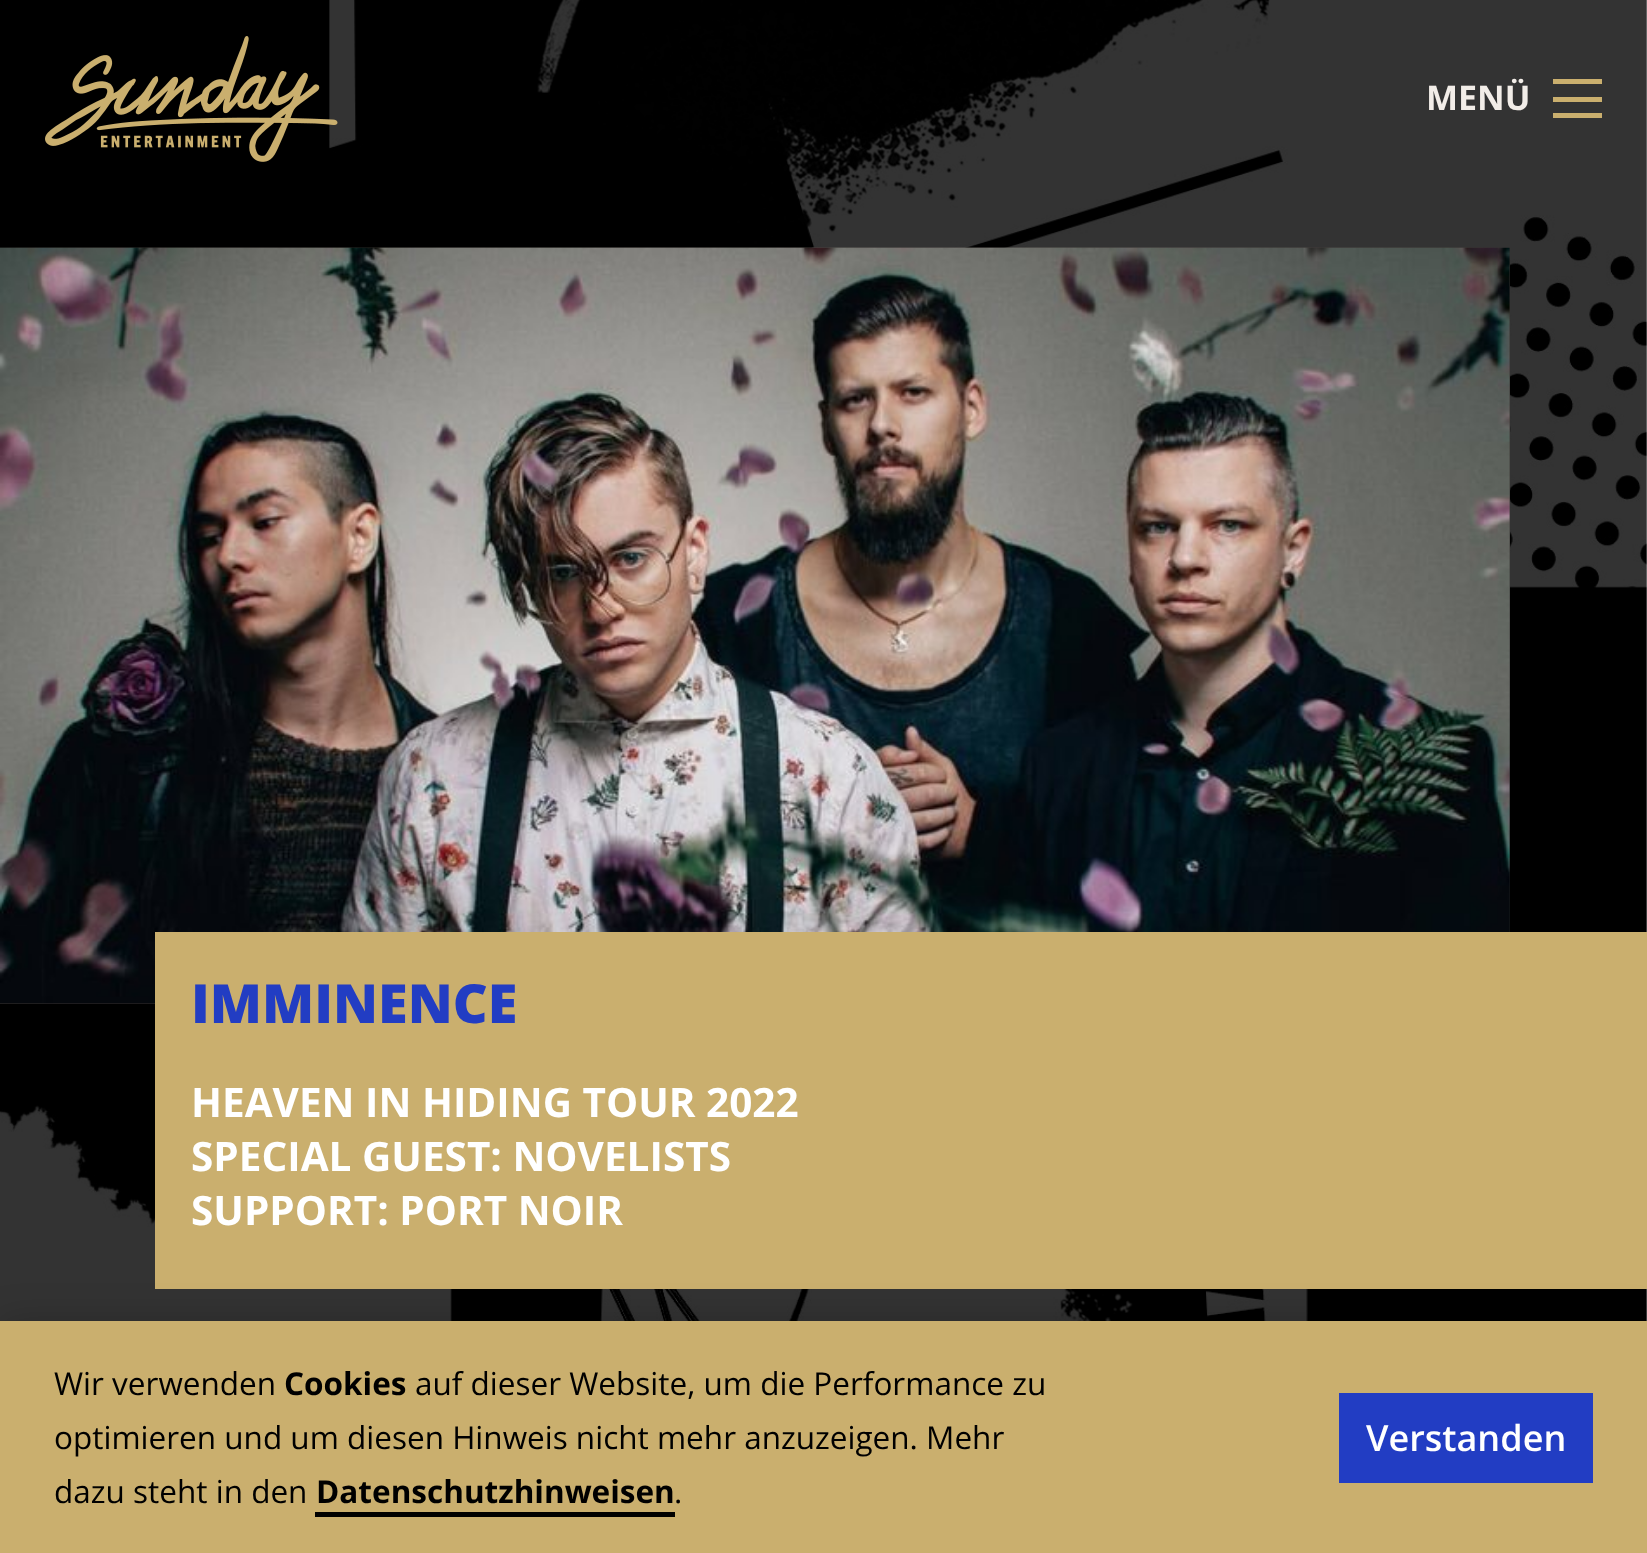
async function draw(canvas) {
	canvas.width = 1647;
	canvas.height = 1553;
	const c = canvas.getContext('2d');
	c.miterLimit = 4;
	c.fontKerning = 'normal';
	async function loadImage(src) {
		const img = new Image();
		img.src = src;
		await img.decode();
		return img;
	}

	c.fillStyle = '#fff';
	c.fillRect(0, 0, 1647, 1553);
	c.drawImage(await loadImage('img1.png'), 0, 0, 1647, 1321);
	c.drawImage(await loadImage('img2.png'), 45, 36, 293, 126);
	c.font = 'bold 34px Open Sans';
	c.fillStyle = '#f2ede8';
	c.fillText('MENÜ', 1426, 110);
	for (const [x, y, w, h, color] of [
		[1553, 113, 49, 5, '#caaf6e'],
		[1553, 97, 49, 5, '#caaf6e'],
		[1553, 79, 49, 5, '#caaf6e'],
		[0, 248, 1510, 756, '#2c2b29'],
	]) {
		c.fillStyle = color;
		c.fillRect(x, y, w, h);
	}
	c.drawImage(await loadImage('img3.png'), 0, 247, 1510, 757);
	c.drawImage(await loadImage('img4.png'), 0, 247, 1510, 757);
	c.fillStyle = '#caaf6e';
	c.fillRect(155, 932, 1492, 357);
	c.font = '800 54px Open Sans';
	c.fillStyle = '#223dc3';
	c.fillText('IMMINENCE', 191, 1023);
	c.font = 'bold 40.5px Open Sans';
	c.fillStyle = '#fff';
	for (const [text, x, y] of [
		['HEAVEN IN HIDING TOUR 2022', 191, 1117],
		['SPECIAL GUEST: NOVELISTS', 191, 1171],
		['SUPPORT: PORT NOIR', 191, 1225],
	]) {
		c.fillText(text, x, y);
	}
	c.fillStyle = '#00000033';
	c.filter = 'blur(18px)';
	c.beginPath();
	c.rect(0, 1321, 1647, 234);
	c.fill();
	c.filter = 'none';
	c.fillStyle = '#caaf6e';
	c.fillRect(0, 1321, 1647, 232);
	c.font = '31.5px Open Sans';
	c.fillStyle = '#000';
	c.fillText('Wir verwenden', 54, 1395);
	c.font = 'bold 31.5px Open Sans';
	c.fillText('Cookies', 284, 1395);
	c.font = '31.5px Open Sans';
	for (const [text, x, y] of [
		['auf dieser Website, um die Performance zu', 415, 1395],
		['optimieren und um diesen Hinweis nicht mehr anzuzeigen. Mehr', 54, 1449],
		['dazu steht in den', 54, 1503],
	]) {
		c.fillText(text, x, y);
	}
	c.font = 'bold 31.5px Open Sans';
	c.fillText('Datenschutzhinweisen', 316, 1503);
	c.fillRect(315, 1512, 360, 5);
	c.font = '31.5px Open Sans';
	c.fillText('.', 674, 1503);
	c.fillStyle = '#223dc3';
	c.fillRect(1339, 1393, 254, 90);
	c.font = '600 36px Open Sans';
	c.fillStyle = '#fff';
	c.fillText('Verstanden', 1366, 1451);
}

draw(document.querySelector('canvas'));
